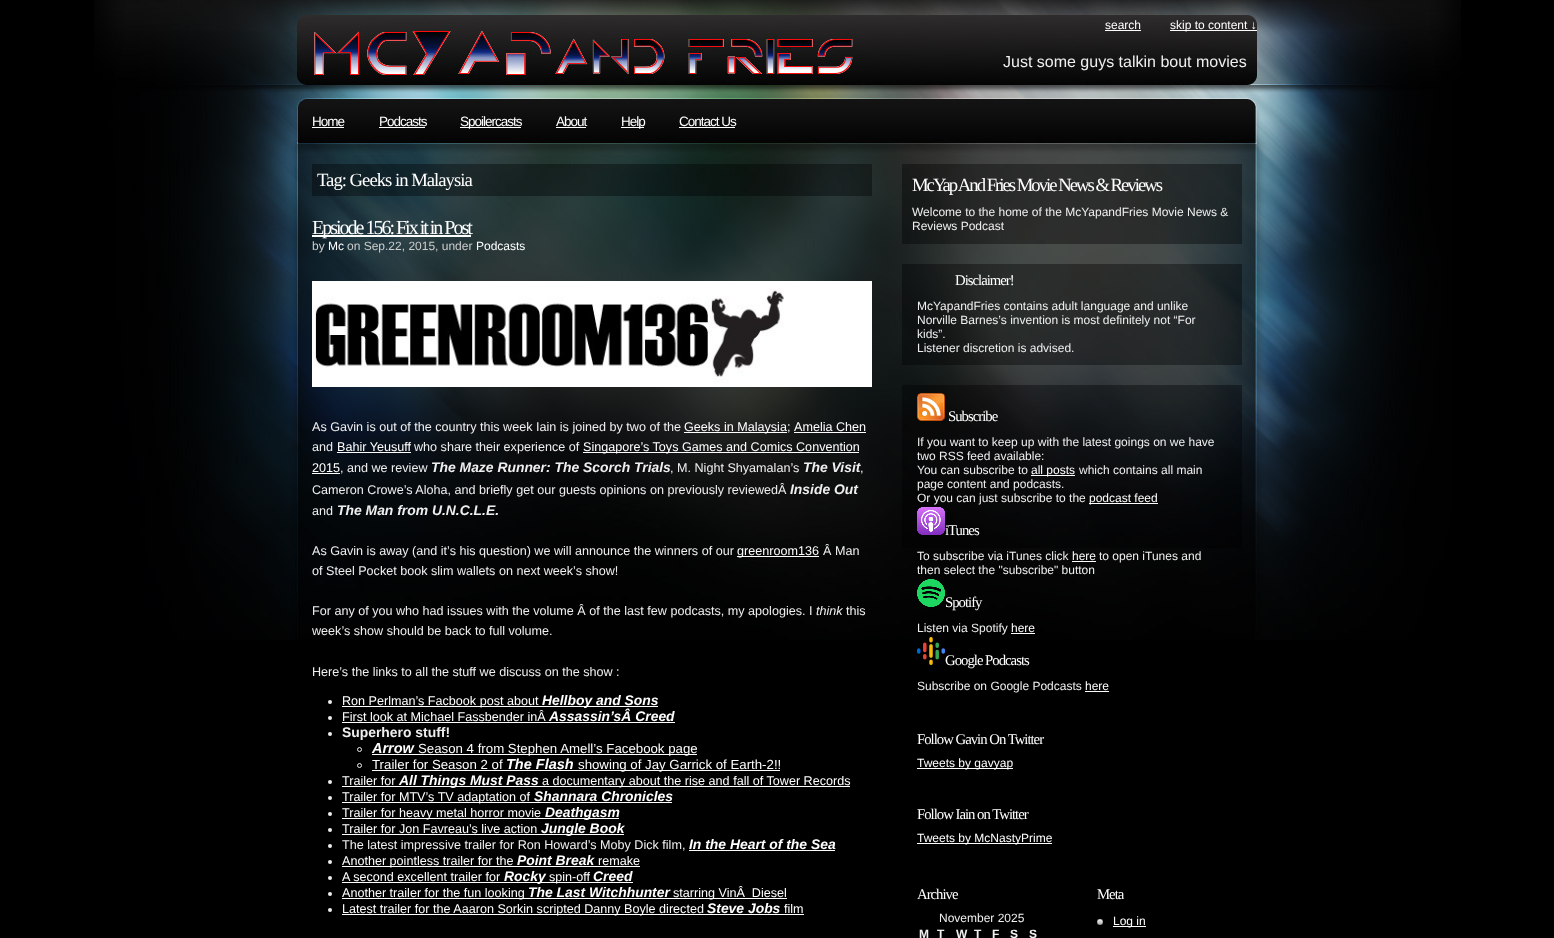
async function draw(canvas) {
	canvas.width = 1554;
	canvas.height = 938;
	const c = canvas.getContext('2d');
	c.miterLimit = 4;
	c.fontKerning = 'normal';
	async function loadImage(src) {
		const img = new Image();
		img.src = src;
		await img.decode();
		return img;
	}

	c.fillStyle = '#000';
	c.fillRect(0, 0, 1554, 938);
	c.drawImage(await loadImage('img1.png'), 94, 0, 1367, 640);
	c.font = '12px Liberation Sans';
	c.fillStyle = '#fff';
	c.fillText('search', 1105, 29);
	c.fillRect(1105, 30, 36, 1);
	c.fillRect(1170, 30, 87, 1);
	c.fillText('skip to content ↓', 1170, 29);
	c.font = '16px Liberation Sans';
	c.fillStyle = '#efefef';
	c.fillText('Just some guys talkin bout movies', 1003, 67);
	c.letterSpacing = '-1px';
	c.font = '13.5px Liberation Sans';
	c.fillStyle = '#fff';
	c.fillText('Home', 312, 126);
	c.fillRect(312, 127, 32, 1);
	c.fillText('Podcasts', 379, 126);
	c.fillRect(379, 127, 46, 1);
	c.fillRect(460, 127, 61, 1);
	c.fillText('Spoilercasts', 460, 126);
	c.fillText('About', 556, 126);
	c.fillRect(556, 127, 30, 1);
	c.fillRect(621, 127, 23, 1);
	c.fillText('Help', 621, 126);
	c.fillText('Contact Us', 679, 126);
	c.fillRect(679, 127, 56, 1);
	c.fillStyle = '#00000061';
	c.fillRect(312, 164, 560, 32);
	c.font = '18.7px Liberation Serif';
	c.fillStyle = '#fff';
	c.fillText('Tag: Geeks in Malaysia', 317, 186);
	c.fillRect(312, 235, 159, 2);
	c.letterSpacing = '-2px';
	c.font = '20px Liberation Serif';
	c.fillText('Epsiode 156: Fix it in Post', 312, 234);
	c.letterSpacing = '0px';
	c.font = '12px Liberation Sans';
	c.fillStyle = '#cdcdcd';
	c.fillText('by', 312, 250);
	c.fillStyle = '#fff';
	c.fillText('Mc', 328, 250);
	c.fillStyle = '#cdcdcd';
	c.fillText('on Sep.22, 2015, under', 347, 250);
	c.fillStyle = '#fff';
	c.fillText('Podcasts', 476, 250);
	c.drawImage(await loadImage('img2.png'), 312, 281, 560, 106);
	c.font = '12.6px Liberation Sans';
	c.fillStyle = '#efefef';
	c.fillText('As Gavin is out of the country this week Iain is joined by two of the', 312, 431);
	c.fillStyle = '#fff';
	c.fillRect(684, 432, 103, 1);
	c.fillText('Geeks in Malaysia', 684, 431);
	c.fillStyle = '#efefef';
	c.fillText(';', 787, 431);
	c.fillStyle = '#fff';
	c.fillText('Amelia Chen', 794, 431);
	c.fillRect(794, 432, 72, 1);
	c.fillStyle = '#efefef';
	c.fillText('and', 312, 451);
	c.fillStyle = '#fff';
	c.fillText('Bahir Yeusuff', 337, 451);
	c.fillRect(337, 452, 74, 1);
	c.fillStyle = '#efefef';
	c.fillText('who share their experience of', 414, 451);
	c.fillStyle = '#fff';
	c.fillRect(583, 452, 276, 1);
	c.fillText('Singapore’s Toys Games and Comics Convention', 583, 451);
	c.fillText('2015', 312, 472);
	c.fillRect(312, 473, 28, 1);
	c.fillStyle = '#efefef';
	c.fillText(', and we review', 340, 472);
	c.font = 'italic bold 13.9px Liberation Sans';
	c.fillText('The Maze Runner: The Scorch Trials', 431, 472);
	c.font = '12.6px Liberation Sans';
	c.fillText(', M. Night Shyamalan’s', 670, 472);
	c.font = 'italic bold 13.9px Liberation Sans';
	c.fillText('The Visit', 803, 472);
	c.font = '12.6px Liberation Sans';
	c.fillText(',', 860, 472);
	c.fillText('Cameron Crowe’s Aloha, and briefly get our guests opinions on previously reviewedÂ', 312, 494);
	c.font = 'italic bold 13.9px Liberation Sans';
	c.fillText('Inside Out', 790, 494);
	c.font = '12.6px Liberation Sans';
	c.fillText('and', 312, 515);
	c.font = 'italic bold 13.9px Liberation Sans';
	c.fillText('The Man from U.N.C.L.E.', 337, 515);
	c.font = '12.6px Liberation Sans';
	c.fillText('As Gavin is away (and it’s his question) we will announce the winners of our', 312, 555);
	c.fillStyle = '#fff';
	c.fillRect(737, 556, 82, 1);
	c.fillText('greenroom136', 737, 555);
	c.fillStyle = '#efefef';
	for (const [text, x, y] of [
		['Â Man', 823, 555],
		['of Steel Pocket book slim wallets on next week’s show!', 312, 575],
		['For any of you who had issues with the volume Â of the last few podcasts, my apologies. I', 312, 615],
	]) {
		c.fillText(text, x, y);
	}
	c.font = 'italic 12.6px Liberation Sans';
	c.fillText('think', 816, 615);
	c.font = '12.6px Liberation Sans';
	for (const [text, x, y] of [
		['this', 846, 615],
		['week’s show should be back to full volume.', 312, 635],
		['Here’s the links to all the stuff we discuss on the show :', 312, 676],
	]) {
		c.fillText(text, x, y);
	}
	c.fillStyle = '#eee';
	c.beginPath();
	c.arc(330, 702, 2, 0, 2 * Math.PI);
	c.fill();
	c.fillStyle = '#fff';
	c.fillRect(342, 706, 316, 1);
	c.fillText('Ron Perlman’s Facbook post about', 342, 705);
	c.font = 'italic bold 13.9px Liberation Sans';
	c.fillText('Hellboy and Sons', 542, 705);
	c.fillStyle = '#eee';
	c.beginPath();
	c.arc(330, 718, 2, 0, 2 * Math.PI);
	c.fill();
	c.font = '12.6px Liberation Sans';
	c.fillStyle = '#fff';
	c.fillText('First look at Michael Fassbender inÂ', 342, 721);
	c.fillRect(342, 722, 333, 1);
	c.font = 'italic bold 13.9px Liberation Sans';
	c.fillText('Assassin’sÂ Creed', 549, 721);
	c.fillStyle = '#eee';
	c.beginPath();
	c.arc(330, 734, 2, 0, 2 * Math.PI);
	c.fill();
	c.font = 'bold 13.9px Liberation Sans';
	c.fillStyle = '#efefef';
	c.fillText('Superhero stuff!', 342, 737);
	c.beginPath();
	c.arc(359.5, 749.5, 2, 0, 2 * Math.PI);
	c.strokeStyle = '#eee';
	c.stroke();
	c.font = 'italic bold 14.5px Liberation Sans';
	c.fillStyle = '#fff';
	c.fillText('Arrow', 372, 753);
	c.fillRect(372, 754, 325, 1);
	c.font = '13.25px Liberation Sans';
	c.fillText('Season 4 from Stephen Amell’s Facebook page', 418, 753);
	c.beginPath();
	c.arc(359.5, 765.5, 2, 0, 2 * Math.PI);
	c.stroke();
	c.fillText('Trailer for Season 2 of', 372, 769);
	c.font = 'italic bold 14.5px Liberation Sans';
	c.fillText('The Flash', 506, 769);
	c.fillRect(372, 770, 408, 1);
	c.font = '13.25px Liberation Sans';
	c.fillText('showing of Jay Garrick of Earth-2!!', 578, 769);
	c.fillStyle = '#eee';
	c.beginPath();
	c.arc(330, 782, 2, 0, 2 * Math.PI);
	c.fill();
	c.font = '12.6px Liberation Sans';
	c.fillStyle = '#fff';
	c.fillText('Trailer for', 342, 785);
	c.fillRect(342, 786, 508, 1);
	c.font = 'italic bold 13.9px Liberation Sans';
	c.fillText('All Things Must Pass', 399, 785);
	c.font = '12.6px Liberation Sans';
	c.fillText('a documentary about the rise and fall of Tower Records', 542, 785);
	c.fillStyle = '#eee';
	c.beginPath();
	c.arc(330, 798, 2, 0, 2 * Math.PI);
	c.fill();
	c.fillStyle = '#fff';
	c.fillRect(342, 802, 330, 1);
	c.fillText('Trailer for MTV’s TV adaptation of', 342, 801);
	c.font = 'italic bold 13.9px Liberation Sans';
	c.fillText('Shannara Chronicles', 534, 801);
	c.fillStyle = '#eee';
	c.beginPath();
	c.arc(330, 814, 2, 0, 2 * Math.PI);
	c.fill();
	c.fillStyle = '#fff';
	c.fillRect(342, 818, 277, 1);
	c.font = '12.6px Liberation Sans';
	c.fillText('Trailer for heavy metal horror movie', 342, 817);
	c.font = 'italic bold 13.9px Liberation Sans';
	c.fillText('Deathgasm', 545, 817);
	c.fillStyle = '#eee';
	c.beginPath();
	c.arc(330, 830, 2, 0, 2 * Math.PI);
	c.fill();
	c.font = '12.6px Liberation Sans';
	c.fillStyle = '#fff';
	c.fillText('Trailer for Jon Favreau’s live action', 342, 833);
	c.fillRect(342, 834, 282, 1);
	c.font = 'italic bold 13.9px Liberation Sans';
	c.fillText('Jungle Book', 541, 833);
	c.fillStyle = '#eee';
	c.beginPath();
	c.arc(330, 846, 2, 0, 2 * Math.PI);
	c.fill();
	c.font = '12.6px Liberation Sans';
	c.fillStyle = '#efefef';
	c.fillText('The latest impressive trailer for Ron Howard’s Moby Dick film,', 342, 849);
	c.font = 'italic bold 13.9px Liberation Sans';
	c.fillStyle = '#fff';
	c.fillText('In the Heart of the Sea', 689, 849);
	c.fillRect(689, 850, 146, 1);
	c.fillStyle = '#eee';
	c.beginPath();
	c.arc(330, 862, 2, 0, 2 * Math.PI);
	c.fill();
	c.fillStyle = '#fff';
	c.fillRect(342, 866, 298, 1);
	c.font = '12.6px Liberation Sans';
	c.fillText('Another pointless trailer for the', 342, 865);
	c.font = 'italic bold 13.9px Liberation Sans';
	c.fillText('Point Break', 517, 865);
	c.font = '12.6px Liberation Sans';
	c.fillText('remake', 598, 865);
	c.fillStyle = '#eee';
	c.beginPath();
	c.arc(330, 878, 2, 0, 2 * Math.PI);
	c.fill();
	c.fillStyle = '#fff';
	c.fillText('A second excellent trailer for', 342, 881);
	c.fillRect(342, 882, 203, 1);
	c.font = 'italic bold 13.9px Liberation Sans';
	c.fillText('Rocky', 504, 881);
	c.fillRect(545, 882, 88, 1);
	c.font = '12.6px Liberation Sans';
	c.fillText('spin-off', 549, 881);
	c.font = 'italic bold 13.9px Liberation Sans';
	c.fillText('Creed', 593, 881);
	c.fillStyle = '#eee';
	c.beginPath();
	c.arc(330, 894, 2, 0, 2 * Math.PI);
	c.fill();
	c.fillStyle = '#fff';
	c.fillRect(342, 898, 445, 1);
	c.font = '12.6px Liberation Sans';
	c.fillText('Another trailer for the fun looking', 342, 897);
	c.font = 'italic bold 13.9px Liberation Sans';
	c.fillText('The Last Witchhunter', 528, 897);
	c.font = '12.6px Liberation Sans';
	c.fillText('starring VinÂ  Diesel', 673, 897);
	c.fillStyle = '#eee';
	c.beginPath();
	c.arc(330, 910, 2, 0, 2 * Math.PI);
	c.fill();
	c.fillStyle = '#fff';
	c.fillRect(342, 914, 462, 1);
	c.fillText('Latest trailer for the Aaaron Sorkin scripted Danny Boyle directed', 342, 913);
	c.font = 'italic bold 13.9px Liberation Sans';
	c.fillText('Steve Jobs', 707, 913);
	c.font = '12.6px Liberation Sans';
	c.fillText('film', 784, 913);
	c.fillStyle = '#00000061';
	c.fillRect(902, 164, 340, 80);
	c.letterSpacing = '-2px';
	c.font = '18.7px Liberation Serif';
	c.fillStyle = '#fff';
	c.fillText('McYap And Fries Movie News & Reviews', 912, 191);
	c.letterSpacing = '0px';
	c.font = '12px Liberation Sans';
	c.fillStyle = '#efefef';
	c.fillText('Welcome to the home of the McYapandFries Movie News &', 912, 216);
	c.fillText('Reviews Podcast', 912, 230);
	c.fillStyle = '#00000061';
	c.fillRect(902, 264, 340, 101);
	c.letterSpacing = '-1px';
	c.font = '14.75px Liberation Serif';
	c.fillStyle = '#fff';
	c.fillText('Disclaimer!', 955, 285);
	c.letterSpacing = '0px';
	c.font = '12px Liberation Sans';
	c.fillStyle = '#efefef';
	for (const [text, x, y] of [
		['McYapandFries contains adult language and unlike', 917, 310],
		['Norville Barnes’s invention is most definitely not “For', 917, 324],
		['kids”.', 917, 338],
		['Listener discretion is advised.', 917, 352],
	]) {
		c.fillText(text, x, y);
	}
	c.fillStyle = '#00000061';
	c.fillRect(902, 385, 340, 163);
	c.drawImage(await loadImage('img3.png'), 917, 393, 28, 28);
	c.letterSpacing = '-1px';
	c.font = '14.75px Liberation Serif';
	c.fillStyle = '#fff';
	c.fillText('Subscribe', 948, 421);
	c.letterSpacing = '0px';
	c.font = '12px Liberation Sans';
	c.fillStyle = '#efefef';
	for (const [text, x, y] of [
		['If you want to keep up with the latest goings on we have', 917, 446],
		['two RSS feed available:', 917, 460],
		['You can subscribe to', 917, 474],
	]) {
		c.fillText(text, x, y);
	}
	c.fillStyle = '#fff';
	c.fillRect(1031, 475, 44, 1);
	c.fillText('all posts', 1031, 474);
	c.fillStyle = '#efefef';
	for (const [text, x, y] of [
		['which contains all main', 1079, 474],
		['page content and podcasts.', 917, 488],
		['Or you can just subscribe to the', 917, 502],
	]) {
		c.fillText(text, x, y);
	}
	c.fillStyle = '#fff';
	c.fillRect(1089, 503, 69, 1);
	c.fillText('podcast feed', 1089, 502);
	c.drawImage(await loadImage('img4.png'), 917, 507, 28, 28);
	c.letterSpacing = '-1px';
	c.font = '14.75px Liberation Serif';
	c.fillText('iTunes', 945, 535);
	c.letterSpacing = '0px';
	c.font = '12px Liberation Sans';
	c.fillStyle = '#efefef';
	c.fillText('To subscribe via iTunes click', 917, 560);
	c.fillStyle = '#fff';
	c.fillText('here', 1072, 560);
	c.fillRect(1072, 561, 24, 1);
	c.fillStyle = '#efefef';
	c.fillText('to open iTunes and', 1099, 560);
	c.fillText('then select the "subscribe" button', 917, 574);
	c.drawImage(await loadImage('img5.png'), 917, 579, 28, 28);
	c.letterSpacing = '-1px';
	c.font = '14.75px Liberation Serif';
	c.fillStyle = '#fff';
	c.fillText('Spotify', 945, 607);
	c.letterSpacing = '0px';
	c.font = '12px Liberation Sans';
	c.fillStyle = '#efefef';
	c.fillText('Listen via Spotify', 917, 632);
	c.fillStyle = '#fff';
	c.fillText('here', 1011, 632);
	c.fillRect(1011, 633, 24, 1);
	c.drawImage(await loadImage('img6.png'), 917, 637, 28, 28);
	c.letterSpacing = '-1px';
	c.font = '14.75px Liberation Serif';
	c.fillText('Google Podcasts', 945, 665);
	c.letterSpacing = '0px';
	c.font = '12px Liberation Sans';
	c.fillStyle = '#efefef';
	c.fillText('Subscribe on Google Podcasts', 917, 690);
	c.fillStyle = '#fff';
	c.fillText('here', 1085, 690);
	c.fillRect(1085, 691, 24, 1);
	c.letterSpacing = '-1px';
	c.font = '14.75px Liberation Serif';
	c.fillText('Follow Gavin On Twitter', 917, 744);
	c.fillRect(917, 768, 96, 1);
	c.letterSpacing = '0px';
	c.font = '12px Liberation Sans';
	c.fillText('Tweets by gavyap', 917, 767);
	c.letterSpacing = '-1px';
	c.font = '14.75px Liberation Serif';
	c.fillText('Follow Iain on Twitter', 917, 819);
	c.fillRect(917, 843, 135, 1);
	c.letterSpacing = '0px';
	c.font = '12px Liberation Sans';
	c.fillText('Tweets by McNastyPrime', 917, 842);
	c.letterSpacing = '-1px';
	c.font = '14.75px Liberation Serif';
	c.fillText('Archive', 917, 899);
	c.letterSpacing = '0px';
	c.font = '12px Liberation Sans';
	c.fillStyle = '#efefef';
	c.fillText('November 2025', 939, 922);
	c.font = 'bold 12px Liberation Sans';
	for (const [text, x, y] of [
		['M', 919, 938],
		['T', 937, 938],
		['W', 956, 938],
		['T', 974, 938],
		['F', 992, 938],
		['S', 1010, 938],
		['S', 1029, 938],
	]) {
		c.fillText(text, x, y);
	}
	c.letterSpacing = '-1px';
	c.font = '14.75px Liberation Serif';
	c.fillStyle = '#fff';
	c.fillText('Meta', 1097, 899);
	c.drawImage(await loadImage('img7.png'), 1097, 919, 6, 6);
	c.fillRect(1113, 926, 33, 1);
	c.letterSpacing = '0px';
	c.font = '12px Liberation Sans';
	c.fillText('Log in', 1113, 925);
}

draw(document.querySelector('canvas'));
